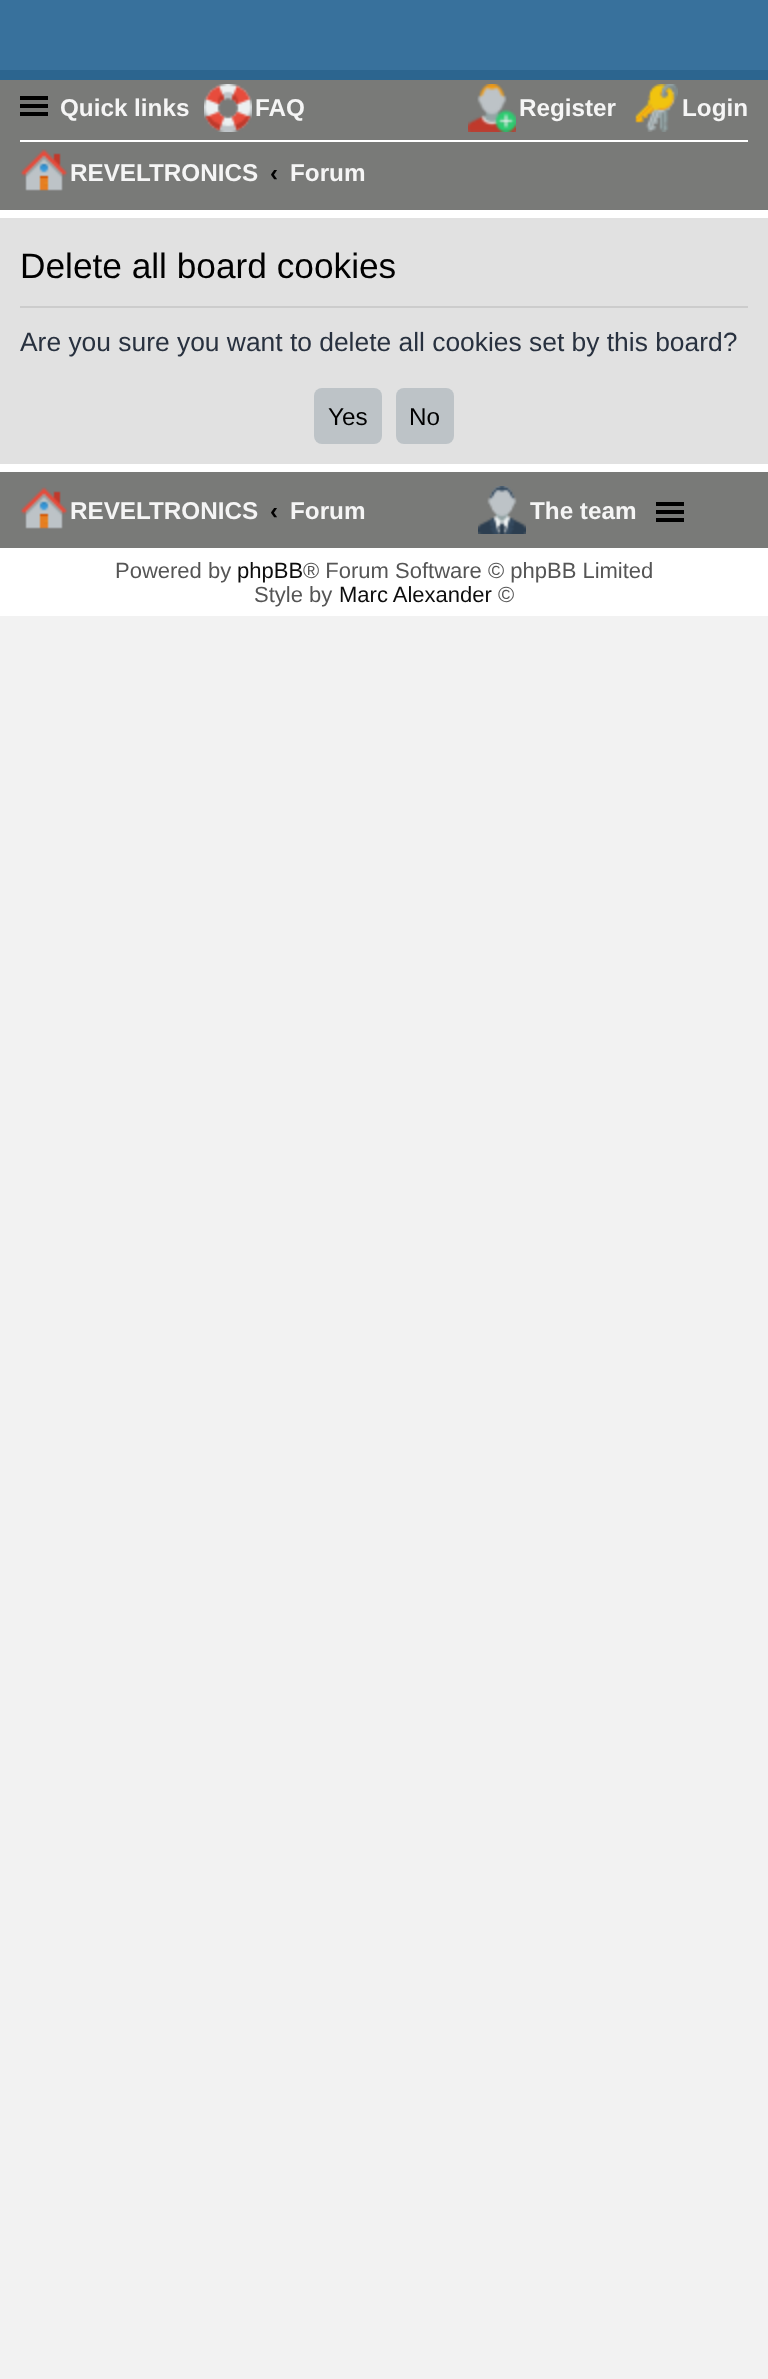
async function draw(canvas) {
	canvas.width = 768;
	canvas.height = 2379;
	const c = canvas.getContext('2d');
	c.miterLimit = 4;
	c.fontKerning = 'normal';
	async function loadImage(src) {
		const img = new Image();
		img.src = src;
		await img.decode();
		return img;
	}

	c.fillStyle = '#f2f2f2';
	c.fillRect(0, 0, 768, 2379);
	for (const [x, y, w, h, color] of [
		[0, 0, 768, 70, '#38719c'],
		[0, 210, 768, 406, '#fff'],
		[0, 80, 768, 130, '#797a78'],
		[0, 70, 768, 10, '#2c658f'],
		[20, 96, 28, 4, '#000'],
		[20, 104, 28, 4, '#000'],
		[20, 112, 28, 4, '#000'],
	]) {
		c.fillStyle = color;
		c.fillRect(x, y, w, h);
	}
	c.font = 'bold 24.25px Liberation Sans';
	c.fillStyle = '#f5f5f5';
	c.fillText('Quick links', 60, 116);
	c.drawImage(await loadImage('img1.png'), 204, 84, 48, 48);
	c.fillText('FAQ', 255, 116);
	c.drawImage(await loadImage('img2.png'), 468, 84, 48, 48);
	c.fillText('Register', 519, 116);
	c.drawImage(await loadImage('img3.png'), 635, 84, 43, 48);
	c.fillText('Login', 682, 116);
	c.fillStyle = '#fff';
	c.fillRect(20, 140, 728, 2);
	c.drawImage(await loadImage('img4.png'), 20, 149, 48, 42);
	c.fillStyle = '#f5f5f5';
	c.fillText('REVELTRONICS', 70, 181);
	c.fillStyle = '#000';
	c.fillText('‹', 270, 181);
	c.fillStyle = '#f5f5f5';
	c.fillText('Forum', 290, 181);
	c.fillStyle = '#e1e1e1';
	c.fillRect(0, 218, 768, 246);
	c.fillStyle = '#ccc';
	c.fillRect(20, 306, 728, 2);
	c.font = '35.25px Liberation Sans';
	c.fillStyle = '#000';
	c.fillText('Delete all board cookies', 20, 278);
	c.font = '26.4px Liberation Sans';
	c.fillStyle = '#28313f';
	c.fillText('Are you sure you want to delete all cookies set by this board?', 20, 351);
	c.fillStyle = '#bdc3c7';
	c.beginPath();
	c.roundRect(314, 388, 68, 56, 8);
	c.fill();
	c.font = '24.25px Liberation Sans';
	c.fillStyle = '#000';
	c.fillText('Yes', 328, 425);
	c.fillStyle = '#bdc3c7';
	c.beginPath();
	c.roundRect(396, 388, 58, 56, 8);
	c.fill();
	c.fillStyle = '#000';
	c.fillText('No', 409, 425);
	c.fillStyle = '#797a78';
	c.fillRect(0, 472, 768, 76);
	c.drawImage(await loadImage('img4.png'), 20, 487, 48, 42);
	c.font = 'bold 24.25px Liberation Sans';
	c.fillStyle = '#f5f5f5';
	c.fillText('REVELTRONICS', 70, 519);
	c.fillStyle = '#000';
	c.fillText('‹', 270, 519);
	c.fillStyle = '#f5f5f5';
	c.fillText('Forum', 290, 519);
	c.drawImage(await loadImage('img5.png'), 478, 486, 48, 48);
	c.fillText('The team', 530, 519);
	for (const [x, y, w, h, color] of [
		[656, 502, 28, 4, '#000'],
		[656, 510, 28, 4, '#000'],
		[656, 518, 28, 4, '#000'],
	]) {
		c.fillStyle = color;
		c.fillRect(x, y, w, h);
	}
	c.font = '22px Liberation Sans';
	c.fillStyle = '#555';
	c.fillText('Powered by', 115, 578);
	c.fillStyle = '#0d0d0d';
	c.fillText('phpBB', 237, 578);
	c.fillStyle = '#555';
	c.fillText('® Forum Software © phpBB Limited', 303, 578);
	c.fillText('Style by', 254, 602);
	c.fillStyle = '#0d0d0d';
	c.fillText('Marc Alexander', 339, 602);
	c.fillStyle = '#555';
	c.fillText('©', 498, 602);
}

draw(document.querySelector('canvas'));
